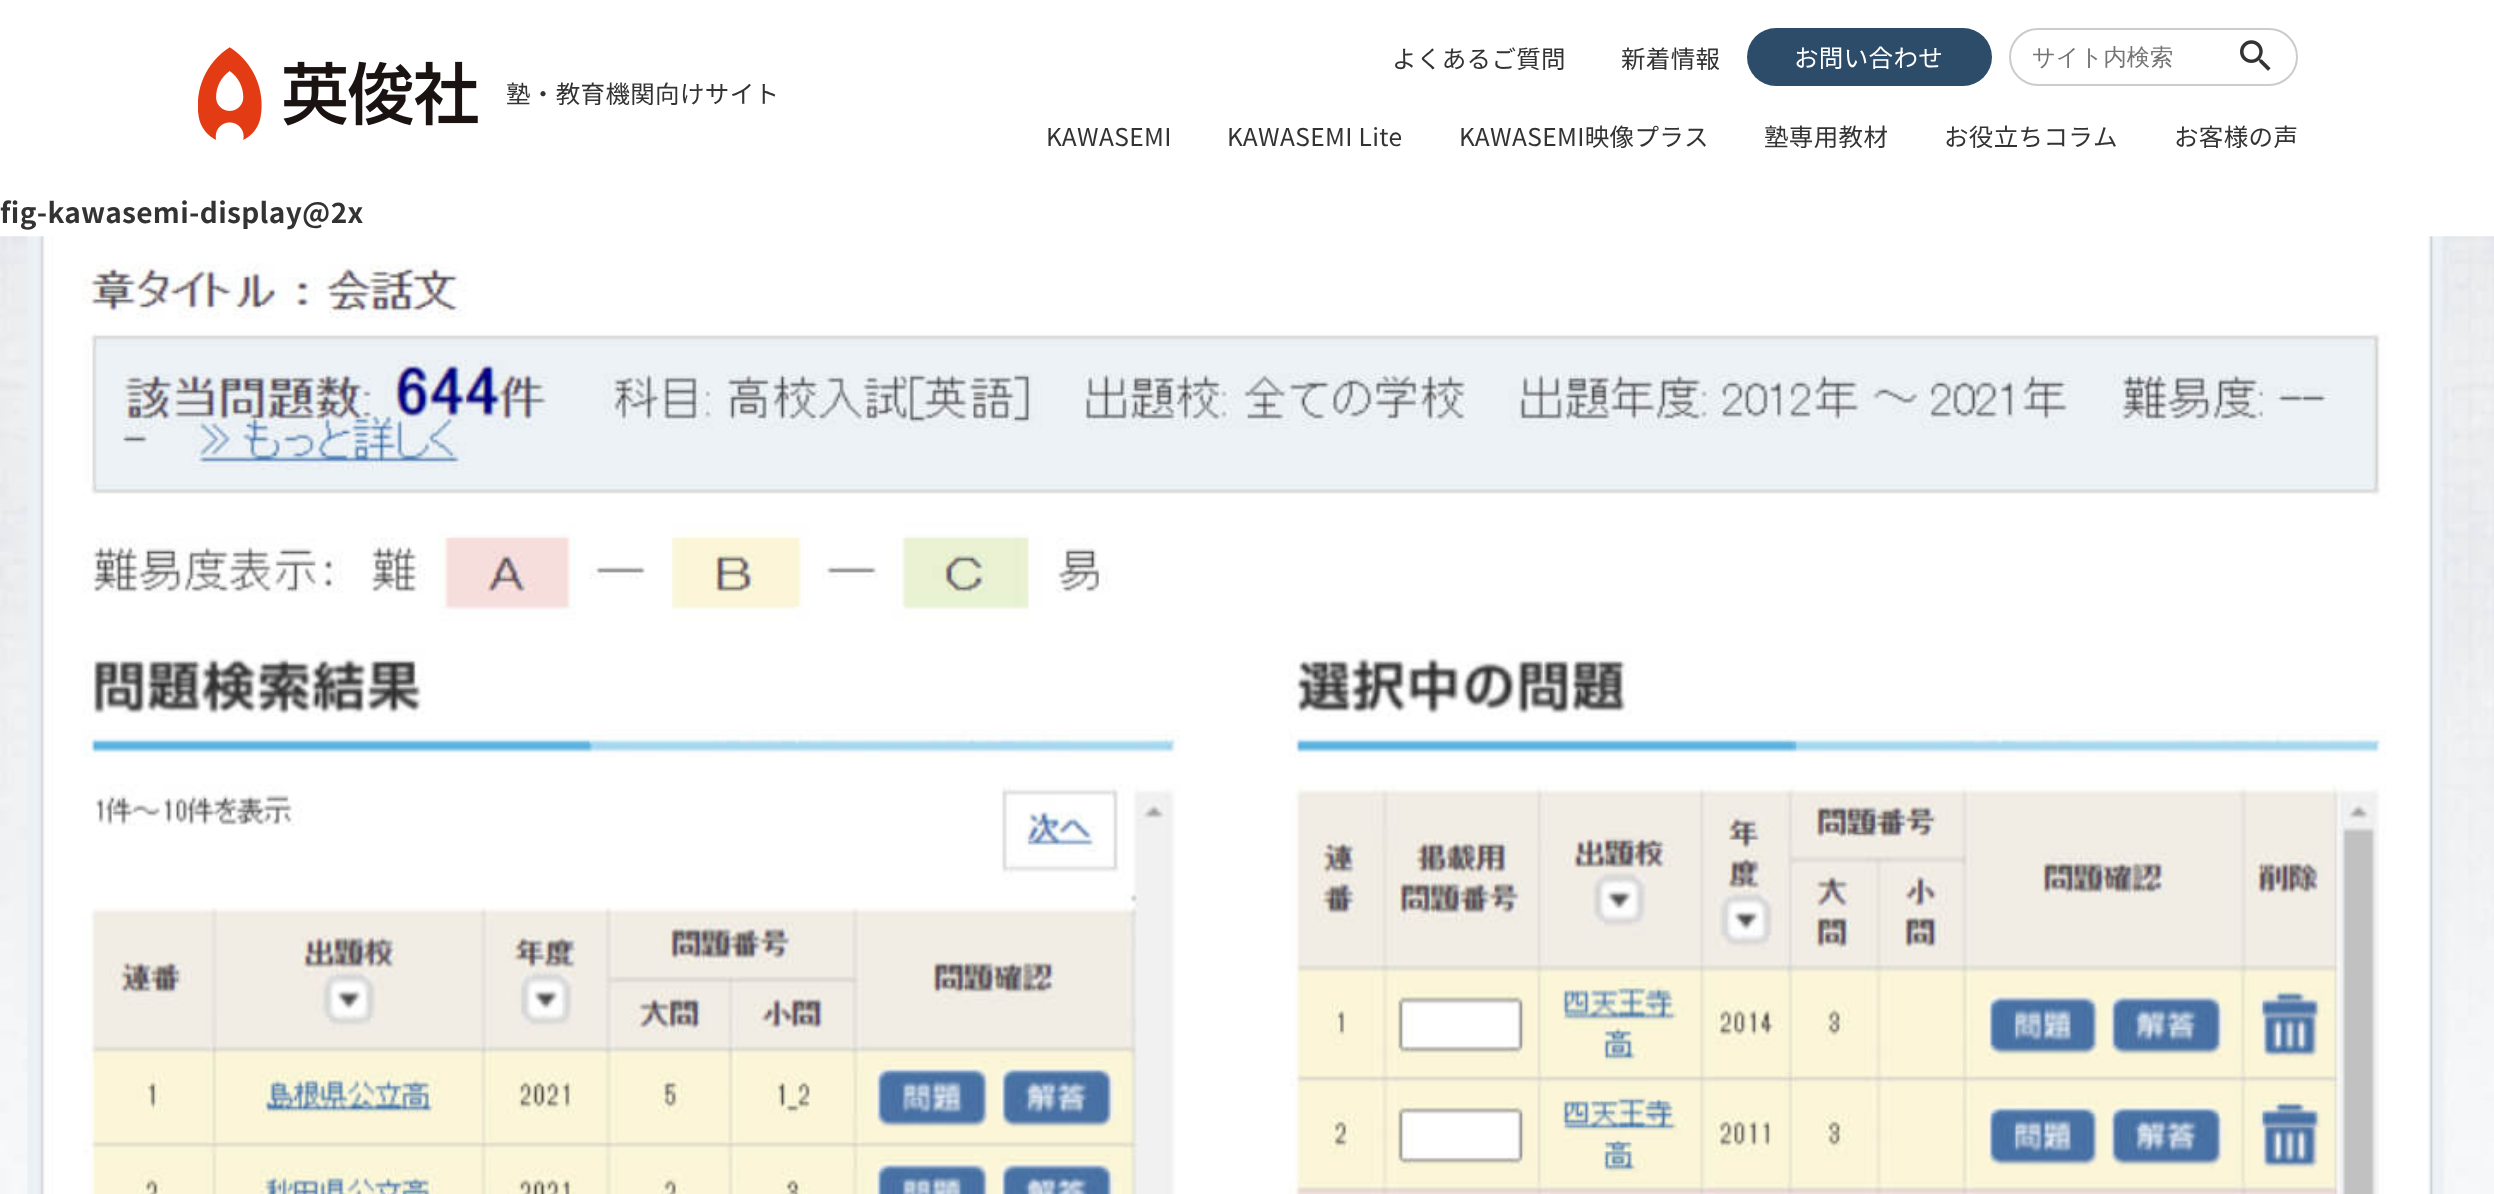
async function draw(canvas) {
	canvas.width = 2494;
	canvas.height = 1194;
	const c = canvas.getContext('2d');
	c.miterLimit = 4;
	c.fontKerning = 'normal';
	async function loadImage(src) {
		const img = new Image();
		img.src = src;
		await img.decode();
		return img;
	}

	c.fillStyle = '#fff';
	c.fillRect(0, 0, 2494, 1194);
	c.drawImage(await loadImage('img1.png'), 198, 47, 280, 93);
	c.letterSpacing = '0.35px';
	c.font = '24.5px Noto Sans JP';
	c.fillStyle = '#333';
	c.fillText('塾・教育機関向けサイト', 506, 103);
	c.beginPath();
	c.roundRect(2010, 29, 287, 56, 28);
	c.strokeStyle = '#ccc';
	c.lineWidth = 2;
	c.stroke();
	c.letterSpacing = '0px';
	c.font = '500 23.25px WenQuanYi Zen Hei';
	c.fillStyle = '#757575';
	c.fillText('サイト内検索', 2032, 65);
	c.drawImage(await loadImage('img2.png'), 2240, 40, 31, 31);
	c.letterSpacing = '0.35px';
	c.font = '24.5px Noto Sans JP';
	c.fillStyle = '#333';
	c.fillText('よくあるご質問', 1392, 68);
	c.fillText('新着情報', 1621, 68);
	c.fillStyle = '#2c4c69';
	c.beginPath();
	c.roundRect(1747, 28, 245, 58, 29);
	c.fill();
	c.fillStyle = '#fff';
	c.fillText('お問い合わせ', 1794, 67);
	c.fillStyle = '#333';
	for (const [text, x, y] of [
		['KAWASEMI', 1046, 146],
		['KAWASEMI Lite', 1227, 146],
		['KAWASEMI映像プラス', 1459, 146],
		['塾専用教材', 1764, 146],
		['お役立ちコラム', 1944, 146],
		['お客様の声', 2174, 146],
	]) {
		c.fillText(text, x, y);
	}
	c.font = 'bold 28px Noto Sans JP';
	c.fillText('fig-kawasemi-display@2x', 0, 223);
	c.drawImage(await loadImage('img3.png'), 0, 236, 2494, 958);
}

draw(document.querySelector('canvas'));
